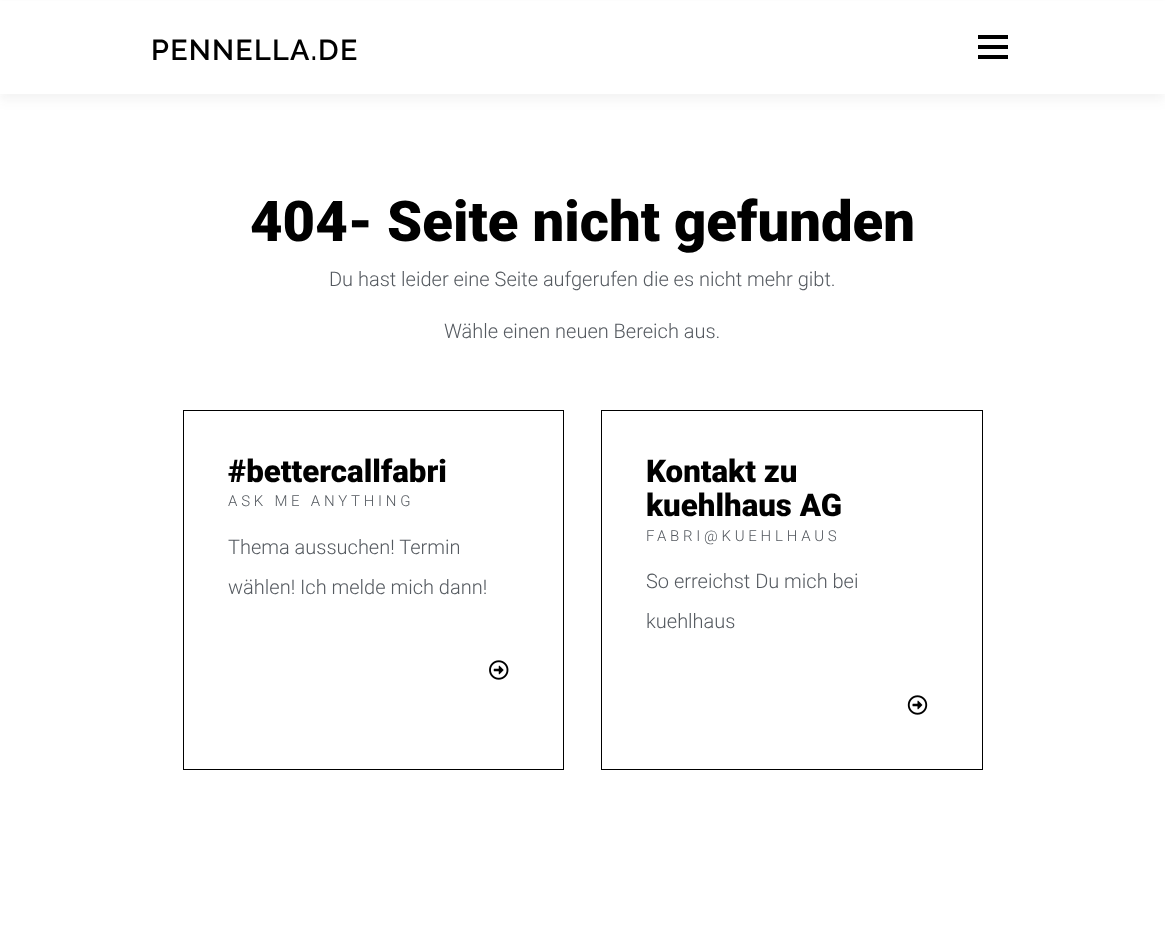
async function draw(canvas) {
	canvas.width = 1165;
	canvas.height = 934;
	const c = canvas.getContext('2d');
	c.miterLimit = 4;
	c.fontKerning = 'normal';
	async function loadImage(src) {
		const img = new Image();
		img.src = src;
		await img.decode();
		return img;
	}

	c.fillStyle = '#fff';
	c.fillRect(0, 0, 1165, 934);
	c.fillStyle = '#3232320f';
	c.filter = 'blur(6px)';
	c.beginPath();
	c.rect(0, 6, 1165, 94);
	c.fill();
	c.filter = 'none';
	c.fillStyle = '#fff';
	c.fillRect(0, 1, 1165, 93);
	c.letterSpacing = '1.25px';
	c.font = '600 28.75px Raleway';
	c.fillStyle = '#000';
	c.fillText('PENNELLA.DE', 151, 60);
	for (const [x, y, w, h, color] of [
		[978, 45, 30, 4, '#000'],
		[978, 35, 30, 4, '#000'],
		[978, 55, 30, 4, '#000'],
	]) {
		c.fillStyle = color;
		c.fillRect(x, y, w, h);
	}
	c.letterSpacing = '0px';
	c.font = '900 56.25px Roboto';
	c.fillText('404- Seite nicht gefunden', 250, 241);
	c.font = '300 20px Roboto';
	c.fillStyle = '#54595f';
	c.fillText('Du hast leider eine Seite aufgerufen die es nicht mehr gibt.', 329, 286);
	c.fillText('Wähle einen neuen Bereich aus.', 444, 338);
	c.strokeStyle = '#000';
	c.strokeRect(183.5, 410.5, 380, 359);
	c.font = '900 31.25px Roboto';
	c.fillStyle = '#000';
	c.fillText('#bettercallfabri', 228, 482);
	c.letterSpacing = '3.75px';
	c.font = '300 15px Roboto';
	c.fillStyle = '#54595f';
	c.fillText('ASK ME ANYTHING', 228, 506);
	c.letterSpacing = '0px';
	c.font = '300 20px Roboto';
	c.fillText('Thema aussuchen! Termin', 228, 554);
	c.fillText('wählen! Ich melde mich dann!', 228, 594);
	c.drawImage(await loadImage('img1.png'), 489, 660, 20, 20);
	c.strokeRect(601.5, 410.5, 381, 359);
	c.font = '900 31.25px Roboto';
	c.fillStyle = '#000';
	c.fillText('Kontakt zu', 646, 482);
	c.fillText('kuehlhaus AG', 646, 516);
	c.letterSpacing = '3.75px';
	c.font = '300 15px Roboto';
	c.fillStyle = '#54595f';
	c.fillText('FABRI@KUEHLHAUS', 646, 541);
	c.letterSpacing = '0px';
	c.font = '300 20px Roboto';
	c.fillText('So erreichst Du mich bei', 646, 588);
	c.fillText('kuehlhaus', 646, 628);
	c.drawImage(await loadImage('img2.png'), 907, 695, 21, 20);
}

draw(document.querySelector('canvas'));
